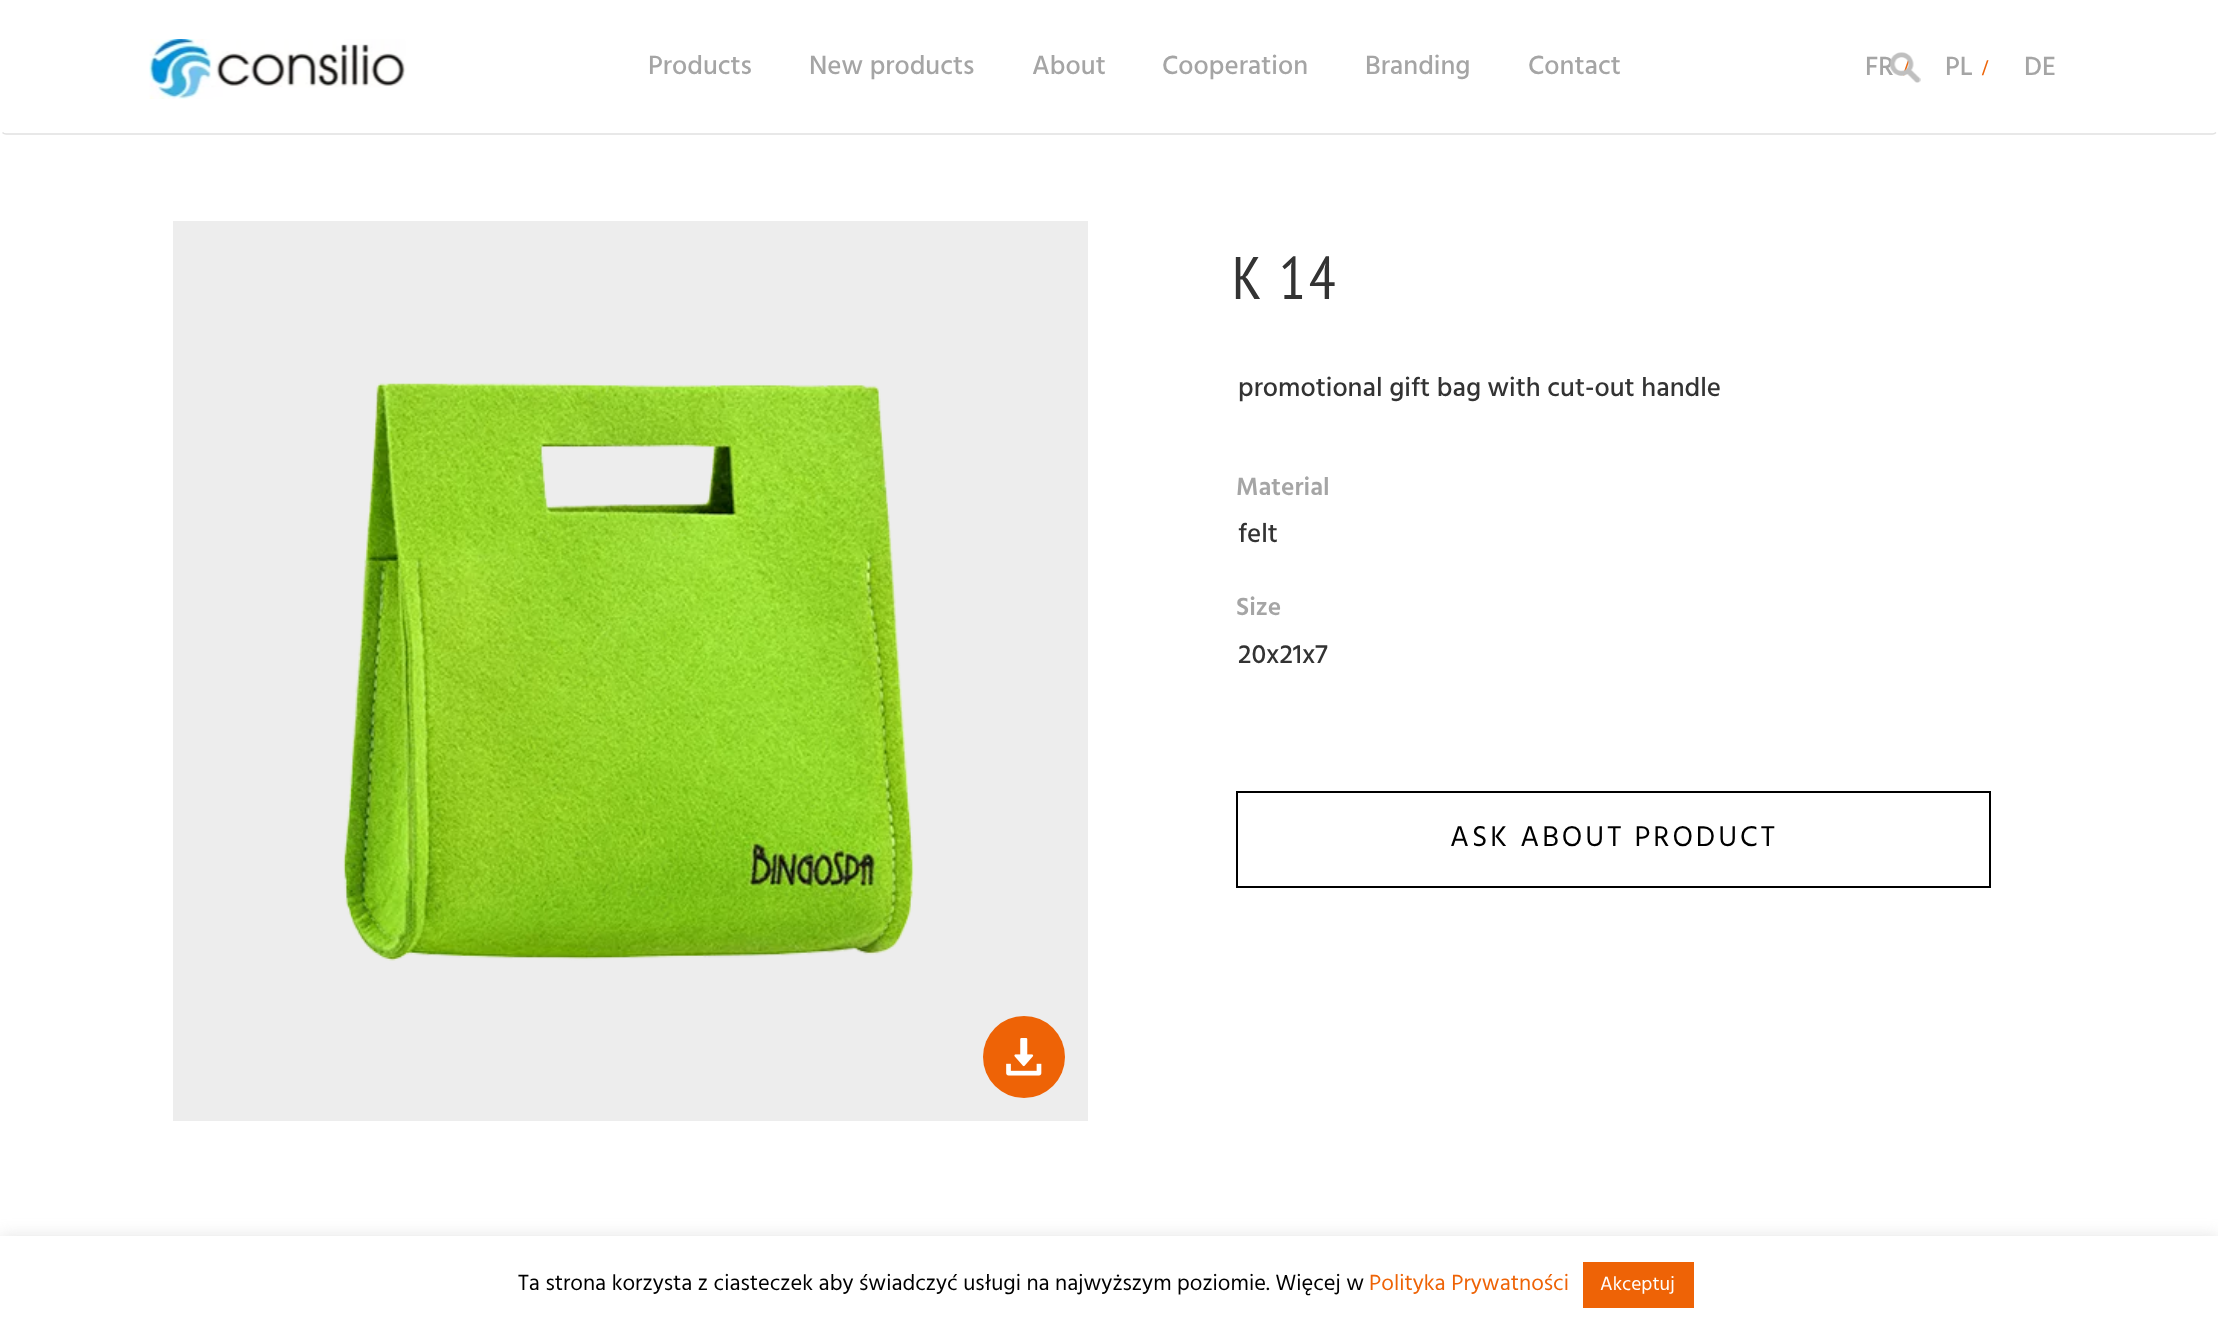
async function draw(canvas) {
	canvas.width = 2218;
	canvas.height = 1333;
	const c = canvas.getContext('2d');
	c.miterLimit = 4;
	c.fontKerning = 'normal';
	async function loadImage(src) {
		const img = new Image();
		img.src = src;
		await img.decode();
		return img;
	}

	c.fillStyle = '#fff';
	c.fillRect(0, 0, 2218, 1333);
	c.beginPath();
	c.moveTo(2216, 132.5);
	c.bezierCurveTo(2215, 133.5, 2214, 134, 2212.5, 134);
	c.lineTo(6, 134);
	c.bezierCurveTo(4.5, 134, 3.5, 133.5, 2.5, 132.5);
	c.strokeStyle = '#e1e1e1';
	c.lineWidth = 1.5;
	c.stroke();
	c.drawImage(await loadImage('img1.png'), 149, 39, 257, 60);
	c.font = '500 27px Hind';
	c.fillStyle = '#a5a5a5';
	for (const [text, x, y] of [
		['Products', 648, 74],
		['New products', 809, 74],
		['About', 1032, 74],
		['Cooperation', 1162, 74],
		['Branding', 1365, 74],
		['Contact', 1528, 74],
		['FR', 1865, 75],
	]) {
		c.fillText(text, x, y);
	}
	c.font = 'bold 22.5px Liberation Serif';
	c.fillStyle = '#ee6306';
	c.fillText('/', 1903, 75);
	c.drawImage(await loadImage('img2.png'), 1889, 52, 32, 31);
	c.font = '500 27px Hind';
	c.fillStyle = '#a5a5a5';
	c.fillText('PL', 1945, 75);
	c.font = 'bold 22.5px Liberation Serif';
	c.fillStyle = '#ee6306';
	c.fillText('/', 1982, 75);
	c.font = '500 27px Hind';
	c.fillStyle = '#a5a5a5';
	c.fillText('DE', 2024, 75);
	c.fillStyle = '#ededed';
	c.fillRect(173, 221, 915, 900);
	c.drawImage(await loadImage('img3.png'), 343, 382, 571, 579);
	c.fillStyle = '#ee6306';
	c.beginPath();
	c.arc(1024, 1057, 41, 0, 2 * Math.PI);
	c.fill();
	c.drawImage(await loadImage('img4.png'), 1006, 1038, 36, 38);
	c.letterSpacing = '3px';
	c.font = '60px PT Sans Narrow';
	c.fillStyle = '#333';
	c.fillText('K 14', 1232, 299);
	c.letterSpacing = '0px';
	c.font = '500 27px Hind';
	c.fillText('promotional gift bag with cut-out handle', 1238, 396);
	c.font = '600 25.5px Hind';
	c.fillStyle = '#a5a5a5';
	c.fillText('Material', 1236, 495);
	c.font = '500 27px Hind';
	c.fillStyle = '#333';
	c.fillText('felt', 1238, 542);
	c.font = '600 25.5px Hind';
	c.fillStyle = '#a5a5a5';
	c.fillText('Size', 1236, 615);
	c.font = '500 27px Hind';
	c.fillStyle = '#333';
	c.fillText('20x21x7', 1238, 663);
	c.strokeStyle = '#000';
	c.lineWidth = 2;
	c.strokeRect(1237, 792, 753, 95);
	c.letterSpacing = '3px';
	c.font = '29.25px Hind';
	c.fillStyle = '#000';
	c.fillText('ASK ABOUT PRODUCT', 1450, 846);
	c.fillStyle = '#acabab4d';
	c.filter = 'blur(7.5px)';
	c.beginPath();
	c.rect(0, 1235, 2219, 97);
	c.fill();
	c.filter = 'none';
	c.fillStyle = '#fff';
	c.fillRect(0, 1236, 2218, 97);
	c.letterSpacing = '0px';
	c.font = '22.5px Hind';
	c.fillStyle = '#000';
	c.fillText('Ta strona korzysta z ciasteczek aby świadczyć usługi na najwyższym poziomie. Więcej w', 518, 1290);
	c.fillStyle = '#ee6306';
	c.fillText('Polityka Prywatności', 1369, 1290);
	c.fillRect(1583, 1262, 111, 46);
	c.font = '19.5px Hind';
	c.fillStyle = '#fff';
	c.fillText('Akceptuj', 1600, 1290);
}

draw(document.querySelector('canvas'));
